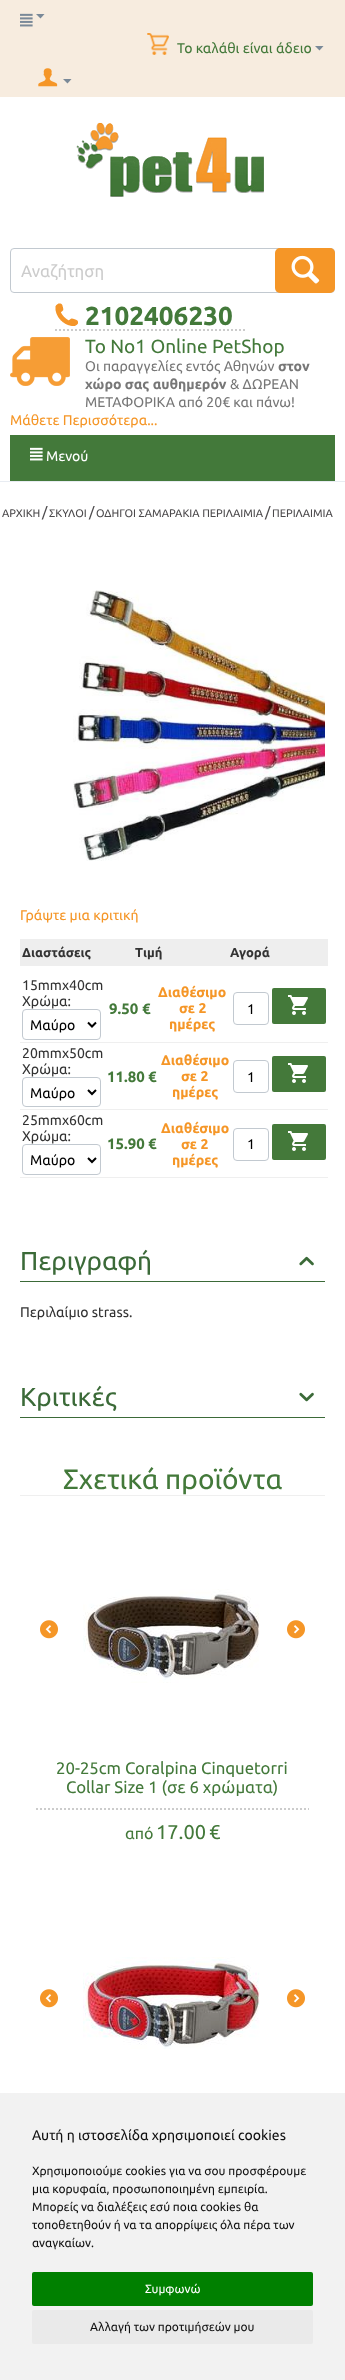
async function draw(canvas) {
	canvas.width = 345;
	canvas.height = 2380;
	const c = canvas.getContext('2d');
	c.miterLimit = 4;
	c.fontKerning = 'normal';
	async function loadImage(src) {
		const img = new Image();
		img.src = src;
		await img.decode();
		return img;
	}

	c.fillStyle = '#f7ecdf';
	c.fillRect(0, 0, 345, 2380);
	c.drawImage(await loadImage('img1.png'), 20, 13, 13, 14);
	c.fillStyle = '#7a8998';
	c.beginPath();
	c.moveTo(40.5, 18.5);
	c.lineTo(36, 14);
	c.lineTo(44.5, 14);
	c.closePath();
	c.fill();
	c.drawImage(await loadImage('img2.png'), 147, 33, 22, 22);
	c.font = '14px Ubuntu';
	c.fillStyle = '#43793a';
	c.fillText('Το καλάθι είναι άδειο', 177, 53);
	c.fillStyle = '#7a8998';
	c.beginPath();
	c.moveTo(319.5, 50.5);
	c.lineTo(315, 46);
	c.lineTo(323.5, 46);
	c.closePath();
	c.fill();
	c.drawImage(await loadImage('img3.png'), 38, 68, 20, 19);
	c.beginPath();
	c.moveTo(67.5, 83.5);
	c.lineTo(63, 79);
	c.lineTo(71.5, 79);
	c.closePath();
	c.fill();
	c.fillStyle = '#fff';
	c.fillRect(0, 97, 345, 384);
	c.fillStyle = '#e8ecf2';
	c.fillRect(0, 481, 345, 1);
	c.drawImage(await loadImage('img4.png'), 76, 122, 188, 75);
	c.beginPath();
	c.roundRect(10.5, 248.5, 324, 44, 3.5);
	c.strokeStyle = '#c2c9d0';
	c.stroke();
	c.save();
	c.beginPath();
	c.rect(21, 261, 283, 19);
	c.clip();
	c.font = '16.75px Ubuntu';
	c.fillStyle = '#ccc';
	c.fillText('Αναζήτηση', 21, 277);
	c.restore();
	c.fillStyle = '#f59627';
	c.beginPath();
	c.roundRect(275, 248, 60, 45, 5);
	c.fill();
	c.drawImage(await loadImage('img5.png'), 291, 255, 29, 29);
	c.drawImage(await loadImage('img6.png'), 55, 303, 23, 23);
	c.beginPath();
	c.moveTo(55, 330);
	c.lineTo(245, 330);
	c.strokeStyle = '#ccc';
	c.lineWidth = 2;
	c.setLineDash([2, 2]);
	c.stroke();
	c.font = 'bold 26px Ubuntu';
	c.fillStyle = '#43793a';
	c.fillText('2102406230', 85, 325);
	c.drawImage(await loadImage('img7.png'), 10, 337, 60, 49);
	c.font = '19px Ubuntu';
	c.fillText('To No1 Online PetShop', 85, 353);
	c.font = '14px Ubuntu';
	c.fillStyle = '#777';
	c.fillText('Oι παραγγελίες εντός Αθηνών', 85, 371);
	c.font = 'bold 14px Ubuntu';
	c.fillText('στον', 278, 371);
	c.fillText('χώρο σας αυθημερόν', 85, 389);
	c.font = '14px Ubuntu';
	c.fillText('& ΔΩΡΕΑΝ', 230, 389);
	c.fillText('ΜΕΤΑΦΟΡΙΚΑ από 20€ και πάνω!', 85, 407);
	c.fillStyle = '#f59627';
	c.fillText('Μάθετε Περισσότερα...', 10, 425);
	c.fillStyle = '#43793a';
	c.fillRect(10, 435, 325, 46);
	c.drawImage(await loadImage('img8.png'), 30, 447, 13, 14);
	c.fillStyle = '#fff';
	c.fillText('Μενού', 46, 461);
	c.fillRect(0, 482, 345, 1611);
	c.font = '11px Ubuntu';
	c.fillStyle = '#4c4a4c';
	c.fillText('ΑΡΧΙΚΗ', 2, 517);
	c.font = '14px Ubuntu';
	c.fillText('/', 42, 517);
	c.font = '11px Ubuntu';
	c.fillText('ΣΚΥΛΟΙ', 49, 517);
	c.font = '14px Ubuntu';
	c.fillText('/', 89, 517);
	c.font = '11px Ubuntu';
	c.fillText('ΟΔΗΓΟΙ ΣΑΜΑΡΑΚΙΑ ΠΕΡΙΛΑΙΜΙΑ', 96, 517);
	c.font = '14px Ubuntu';
	c.fillText('/', 265, 517);
	c.font = '11px Ubuntu';
	c.fillText('ΠΕΡΙΛΑΙΜΙΑ', 272, 517);
	c.drawImage(await loadImage('img9.png'), 73, 590, 252, 271);
	c.font = '14px Ubuntu';
	c.fillStyle = '#f59627';
	c.fillText('Γράψτε μια κριτική', 20, 920);
	c.fillStyle = '#eee';
	c.fillRect(20, 939, 308, 27);
	c.font = 'bold 13px Ubuntu';
	c.fillStyle = '#333';
	for (const [text, x, y] of [
		['Διαστάσεις', 22, 957],
		['Τιμή', 135, 957],
		['Αγορά', 230, 957],
	]) {
		c.fillText(text, x, y);
	}
	c.fillStyle = '#efefef';
	c.fillRect(20, 1042, 308, 1);
	c.font = '14px Ubuntu';
	c.fillStyle = '#333';
	c.fillText('15mmx40cm', 22, 990);
	c.fillText('Χρώμα:', 22, 1006);
	c.beginPath();
	c.roundRect(22.5, 1009.5, 78, 30, 3.5);
	c.strokeStyle = '#c2c9d0';
	c.lineWidth = 1;
	c.setLineDash([]);
	c.stroke();
	c.beginPath();
	c.moveTo(88, 1022.5);
	c.lineTo(92, 1026.5);
	c.lineTo(96, 1022.5);
	c.strokeStyle = '#000';
	c.lineWidth = 2;
	c.stroke();
	c.fillStyle = '#000';
	c.fillText('Μαύρο', 30, 1030);
	c.font = 'bold 15px Ubuntu';
	c.fillStyle = '#43793a';
	c.fillText('9.50', 109, 1014);
	c.fillText('€', 142, 1014);
	c.font = 'bold 14px Ubuntu';
	c.fillStyle = '#f59627';
	for (const [text, x, y] of [
		['Διαθέσιμο', 158, 997],
		['σε 2', 179, 1013],
		['ημέρες', 169, 1029],
	]) {
		c.fillText(text, x, y);
	}
	c.beginPath();
	c.roundRect(233.5, 992.5, 35, 32, 3.5);
	c.strokeStyle = '#c2c9d0';
	c.lineWidth = 1;
	c.stroke();
	c.font = '14px Ubuntu';
	c.fillStyle = '#000';
	c.fillText('1', 247, 1014);
	c.fillStyle = '#44793a';
	c.beginPath();
	c.roundRect(272, 988, 54, 36, 2);
	c.fill();
	c.drawImage(await loadImage('img10.png'), 288, 995, 20, 20);
	c.fillStyle = '#efefef';
	c.fillRect(20, 1109, 308, 1);
	c.fillStyle = '#333';
	c.fillText('20mmx50cm', 22, 1058);
	c.fillText('Χρώμα:', 22, 1074);
	c.beginPath();
	c.roundRect(22.5, 1077.5, 78, 29, 3.5);
	c.stroke();
	c.beginPath();
	c.moveTo(88, 1090);
	c.lineTo(92, 1094);
	c.lineTo(96, 1090);
	c.strokeStyle = '#000';
	c.lineWidth = 2;
	c.stroke();
	c.fillStyle = '#000';
	c.fillText('Μαύρο', 30, 1098);
	c.font = 'bold 15px Ubuntu';
	c.fillStyle = '#43793a';
	c.fillText('11.80', 107, 1082);
	c.fillText('€', 148, 1082);
	c.font = 'bold 14px Ubuntu';
	c.fillStyle = '#f59627';
	for (const [text, x, y] of [
		['Διαθέσιμο', 161, 1065],
		['σε 2', 181, 1081],
		['ημέρες', 172, 1097],
	]) {
		c.fillText(text, x, y);
	}
	c.beginPath();
	c.roundRect(233.5, 1060.5, 35, 32, 3.5);
	c.strokeStyle = '#c2c9d0';
	c.lineWidth = 1;
	c.stroke();
	c.font = '14px Ubuntu';
	c.fillStyle = '#000';
	c.fillText('1', 247, 1082);
	c.fillStyle = '#44793a';
	c.beginPath();
	c.roundRect(272, 1056, 54, 36, 2);
	c.fill();
	c.drawImage(await loadImage('img10.png'), 288, 1063, 20, 20);
	c.fillStyle = '#efefef';
	c.fillRect(20, 1177, 308, 1);
	c.fillStyle = '#333';
	c.fillText('25mmx60cm', 22, 1125);
	c.fillText('Χρώμα:', 22, 1141);
	c.beginPath();
	c.roundRect(22.5, 1144.5, 78, 30, 3.5);
	c.stroke();
	c.beginPath();
	c.moveTo(88, 1158);
	c.lineTo(92, 1162);
	c.lineTo(96, 1158);
	c.strokeStyle = '#000';
	c.lineWidth = 2;
	c.stroke();
	c.fillStyle = '#000';
	c.fillText('Μαύρο', 30, 1165);
	c.font = 'bold 15px Ubuntu';
	c.fillStyle = '#43793a';
	c.fillText('15.90', 107, 1149);
	c.fillText('€', 148, 1149);
	c.font = 'bold 14px Ubuntu';
	c.fillStyle = '#f59627';
	for (const [text, x, y] of [
		['Διαθέσιμο', 161, 1133],
		['σε 2', 181, 1149],
		['ημέρες', 172, 1165],
	]) {
		c.fillText(text, x, y);
	}
	c.beginPath();
	c.roundRect(233.5, 1128.5, 35, 32, 3.5);
	c.strokeStyle = '#c2c9d0';
	c.lineWidth = 1;
	c.stroke();
	c.font = '14px Ubuntu';
	c.fillStyle = '#000';
	c.fillText('1', 247, 1149);
	c.fillStyle = '#44793a';
	c.beginPath();
	c.roundRect(272, 1124, 54, 36, 2);
	c.fill();
	c.drawImage(await loadImage('img10.png'), 288, 1131, 20, 20);
	c.fillStyle = '#3b6a38';
	c.fillRect(20, 1281, 305, 1);
	c.font = '26px Ubuntu';
	c.fillText('Περιγραφή', 20, 1270);
	c.drawImage(await loadImage('img11.png'), 299, 1256, 15, 10);
	c.font = '14px Ubuntu';
	c.fillStyle = '#333';
	c.fillText('Περιλαίμιο strass.', 20, 1317);
	c.fillStyle = '#3b6a38';
	c.fillRect(20, 1417, 305, 1);
	c.font = '26px Ubuntu';
	c.fillText('Κριτικές', 20, 1406);
	c.drawImage(await loadImage('img12.png'), 299, 1392, 15, 10);
	c.fillStyle = '#efefef';
	c.fillRect(20, 1495, 305, 1);
	c.font = '28px Ubuntu';
	c.fillStyle = '#43793a';
	c.fillText('Σχετικά προϊόντα', 63, 1489);
	c.drawImage(await loadImage('img13.png'), 83, 1589, 177, 94);
	c.drawImage(await loadImage('img14.png'), 40, 1620, 18, 19);
	c.drawImage(await loadImage('img15.png'), 287, 1620, 18, 19);
	c.font = '16.75px Ubuntu';
	c.fillText('20-25cm Coralpina Cinquetorri', 56, 1774);
	c.fillText('Collar Size 1 (σε 6 χρώματα)', 66, 1793);
	c.beginPath();
	c.moveTo(36, 1809);
	c.lineTo(309, 1809);
	c.strokeStyle = '#ccc';
	c.lineWidth = 2;
	c.setLineDash([2, 2]);
	c.stroke();
	c.font = '16px Ubuntu';
	c.fillText('από', 125, 1839);
	c.font = '20px Ubuntu';
	c.fillText('17.00', 156, 1839);
	c.fillText('€', 209, 1839);
	c.drawImage(await loadImage('img16.png'), 83, 1957, 177, 92);
	c.drawImage(await loadImage('img14.png'), 40, 1989, 18, 19);
	c.drawImage(await loadImage('img15.png'), 287, 1989, 18, 19);
	c.fillStyle = '#f2f2f2';
	c.fillRect(0, 2093, 345, 287);
	c.font = '14px Ubuntu';
	c.fillStyle = '#111';
	c.fillText('Αυτή η ιστοσελίδα χρησιμοποιεί cookies', 32, 2140);
	c.font = '12px Ubuntu';
	for (const [text, x, y] of [
		['Χρησιμοποιούμε cookies για να σου προσφέρουμε', 32, 2175],
		['μια κορυφαία, προσωποποιημένη εμπειρία.', 32, 2193],
		['Μπορείς να διαλέξεις εσύ ποια cookies θα', 32, 2211],
		['τοποθετηθούν ή να τα απορρίψεις όλα πέρα των', 32, 2229],
		['αναγκαίων.', 32, 2247],
	]) {
		c.fillText(text, x, y);
	}
	c.fillStyle = '#008000';
	c.beginPath();
	c.roundRect(32, 2272, 281, 34, 2);
	c.fill();
	c.fillStyle = '#fff';
	c.fillText('Συμφωνώ', 145, 2293);
	c.fillStyle = '#eaeaea';
	c.beginPath();
	c.roundRect(32, 2310, 281, 34, 2);
	c.fill();
	c.fillStyle = '#111';
	c.fillText('Αλλαγή των προτιμήσεών μου', 90, 2331);
}

draw(document.querySelector('canvas'));
